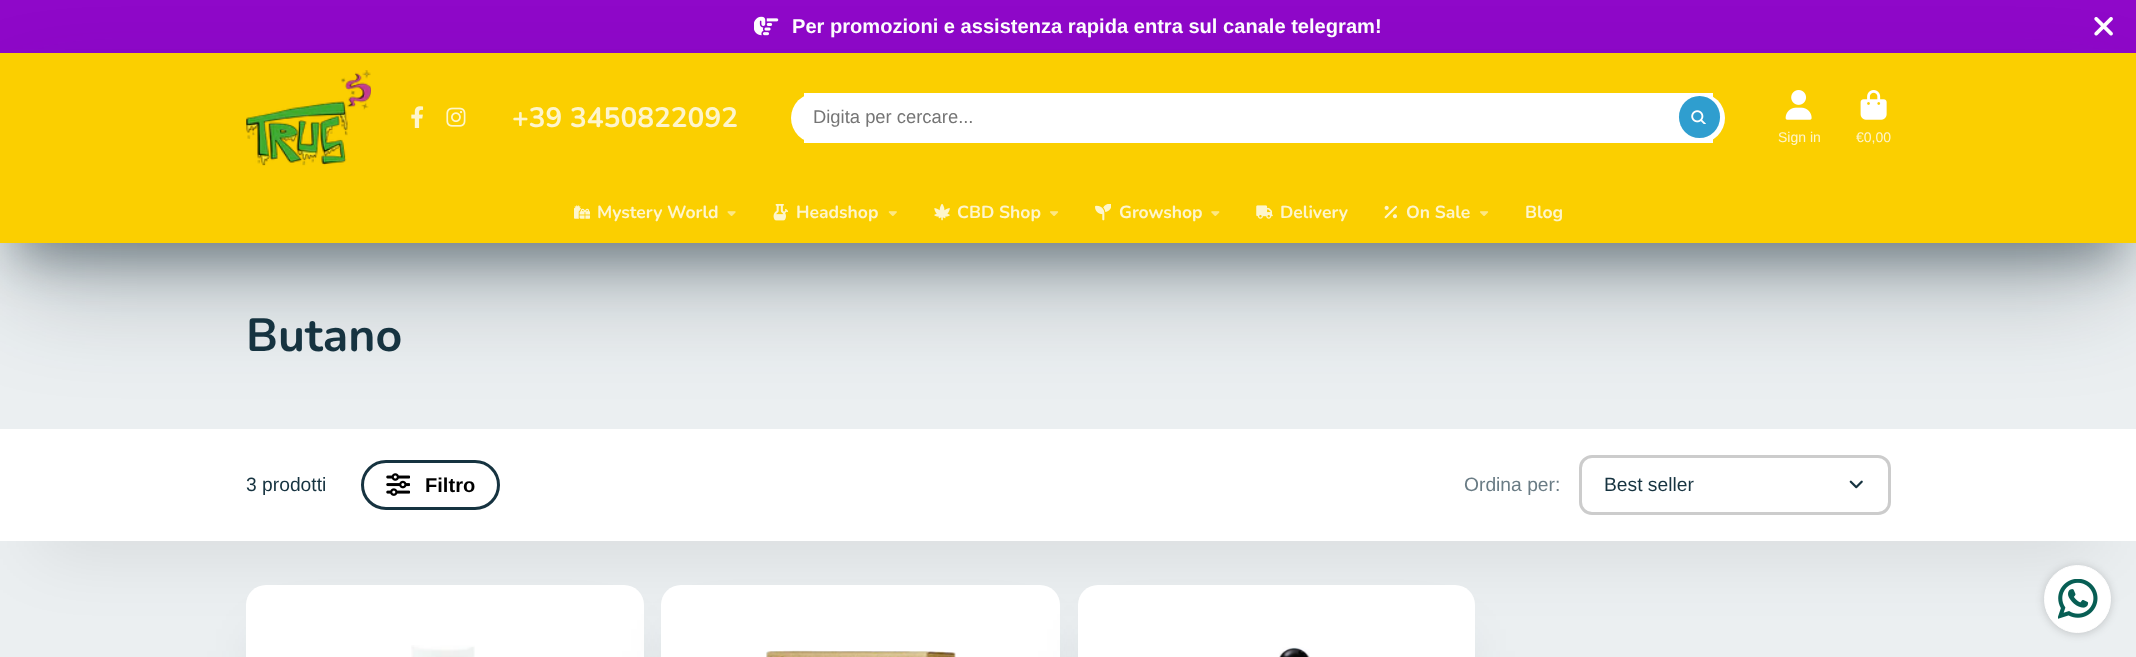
async function draw(canvas) {
	canvas.width = 2136;
	canvas.height = 657;
	const c = canvas.getContext('2d');
	c.miterLimit = 4;
	c.fontKerning = 'normal';
	async function loadImage(src) {
		const img = new Image();
		img.src = src;
		await img.decode();
		return img;
	}

	c.fillStyle = '#ebeff1';
	c.fillRect(0, 0, 2136, 657);
	c.fillStyle = '#8f08c9';
	c.fillRect(0, 0, 2136, 53);
	c.drawImage(await loadImage('img1.png'), 754, 16, 25, 20);
	c.font = 'bold 20.1px Liberation Sans';
	c.fillStyle = '#fff';
	c.fillText('Per promozioni e assistenza rapida entra sul canale telegram!', 792, 33);
	c.drawImage(await loadImage('img2.png'), 2094, 17, 19, 19);
	c.fillStyle = '#0f242d66';
	c.filter = 'blur(24px)';
	c.beginPath();
	c.rect(18, 103, 2101, 155);
	c.fill();
	c.filter = 'none';
	c.fillStyle = '#00000026';
	c.filter = 'blur(37.5px)';
	c.beginPath();
	c.rect(38, 504, 2061, 37);
	c.fill();
	c.filter = 'none';
	c.fillStyle = '#fff';
	c.fillRect(0, 429, 2136, 112);
	c.fillStyle = '#0f242d4d';
	c.filter = 'blur(54.5px)';
	c.beginPath();
	c.rect(18, 125, 2101, 155);
	c.fill();
	c.filter = 'none';
	c.fillStyle = '#fbcf00';
	c.fillRect(0, 53, 2136, 190);
	c.drawImage(await loadImage('img3.png'), 246, 70, 125, 96);
	c.drawImage(await loadImage('img4.png'), 411, 106, 13, 22);
	c.drawImage(await loadImage('img5.png'), 446, 107, 20, 20);
	c.font = 'bold 28px Nunito';
	c.fillStyle = '#fef5cc';
	c.fillText('+39 3450822092', 512, 127);
	c.fillStyle = '#fff';
	c.fillRect(804, 93, 909, 50);
	c.beginPath();
	c.roundRect(791, 93, 934, 50, 25);
	c.fill();
	c.font = '18.4px Liberation Sans';
	c.fillStyle = '#757575';
	c.fillText('Digita per cercare...', 813, 123);
	c.fillStyle = '#2f9ecf';
	c.beginPath();
	c.roundRect(1679, 96, 41, 42, 20.5);
	c.fill();
	c.drawImage(await loadImage('img6.png'), 1691, 110, 15, 14);
	c.drawImage(await loadImage('img7.png'), 1785, 90, 27, 30);
	c.font = '14px Liberation Sans';
	c.fillStyle = '#fef5cc';
	c.fillText('Sign in', 1778, 142);
	c.drawImage(await loadImage('img8.png'), 1860, 90, 27, 30);
	c.fillText('€0,00', 1856, 142);
	c.drawImage(await loadImage('img9.png'), 574, 205, 16, 14);
	c.font = 'bold 17.5px Nunito';
	c.fillText('Mystery World', 597, 218);
	c.drawImage(await loadImage('img10.png'), 727, 211, 9, 5);
	c.drawImage(await loadImage('img11.png'), 773, 204, 15, 17);
	c.fillText('Headshop', 796, 218);
	c.drawImage(await loadImage('img12.png'), 888, 211, 9, 5);
	c.drawImage(await loadImage('img13.png'), 934, 204, 16, 17);
	c.fillText('CBD Shop', 957, 218);
	c.drawImage(await loadImage('img14.png'), 1050, 211, 9, 5);
	c.drawImage(await loadImage('img15.png'), 1095, 204, 16, 17);
	c.fillText('Growshop', 1119, 218);
	c.drawImage(await loadImage('img16.png'), 1211, 211, 9, 5);
	c.drawImage(await loadImage('img17.png'), 1256, 205, 17, 14);
	c.fillText('Delivery', 1280, 218);
	c.drawImage(await loadImage('img18.png'), 1384, 205, 13, 14);
	c.fillText('On Sale', 1406, 218);
	c.drawImage(await loadImage('img14.png'), 1480, 211, 9, 5);
	c.fillText('Blog', 1525, 218);
	c.font = 'bold 46.5px Nunito';
	c.fillStyle = '#163340';
	c.fillText('Butano', 246, 351);
	c.font = '19.25px Liberation Sans';
	c.fillText('3 prodotti', 246, 491);
	c.beginPath();
	c.roundRect(362.5, 461.5, 136, 47, 23.5);
	c.strokeStyle = '#163340';
	c.lineWidth = 3;
	c.stroke();
	c.drawImage(await loadImage('img19.png'), 386, 473, 24, 23);
	c.font = 'bold 20.1px Liberation Sans';
	c.fillStyle = '#000';
	c.fillText('Filtro', 425, 492);
	c.font = '19.25px Liberation Sans';
	c.fillStyle = '#6a7c85';
	c.fillText('Ordina per:', 1464, 491);
	c.beginPath();
	c.roundRect(1580.5, 456.5, 309, 57, 11.5);
	c.strokeStyle = '#ccc';
	c.stroke();
	c.fillStyle = '#163340';
	c.fillText('Best seller', 1604, 491);
	c.drawImage(await loadImage('img20.png'), 1849, 480, 14, 9);
	c.fillStyle = '#0f242d4d';
	c.filter = 'blur(33px)';
	c.beginPath();
	c.rect(279, 651, 332, 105);
	c.fill();
	c.filter = 'none';
	c.fillStyle = '#fff';
	c.beginPath();
	c.roundRect(246, 585, 398, 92, 20);
	c.fill();
	c.drawImage(await loadImage('img21.png'), 411, 645, 64, 12);
	c.fillStyle = '#0f242d4d';
	c.filter = 'blur(33px)';
	c.beginPath();
	c.rect(694, 651, 334, 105);
	c.fill();
	c.filter = 'none';
	c.fillStyle = '#fff';
	c.beginPath();
	c.roundRect(661, 585, 399, 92, 20);
	c.fill();
	c.drawImage(await loadImage('img22.png'), 766, 650, 190, 7);
	c.fillStyle = '#0f242d4d';
	c.filter = 'blur(33px)';
	c.beginPath();
	c.rect(1110, 651, 333, 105);
	c.fill();
	c.filter = 'none';
	c.fillStyle = '#fff';
	c.beginPath();
	c.roundRect(1078, 585, 397, 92, 20);
	c.fill();
	c.drawImage(await loadImage('img23.png'), 1279, 647, 31, 10);
	c.fillStyle = '#1b1b1b33';
	c.filter = 'blur(4px)';
	c.beginPath();
	c.roundRect(2044, 566, 67, 68, 33.5);
	c.fill();
	c.filter = 'none';
	c.fillStyle = '#fff';
	c.beginPath();
	c.roundRect(2044.5, 565.5, 66, 67, 33);
	c.fill();
	c.strokeStyle = '#fff';
	c.lineWidth = 1;
	c.stroke();
	c.drawImage(await loadImage('img24.png'), 2058, 579, 40, 40);
}

draw(document.querySelector('canvas'));
